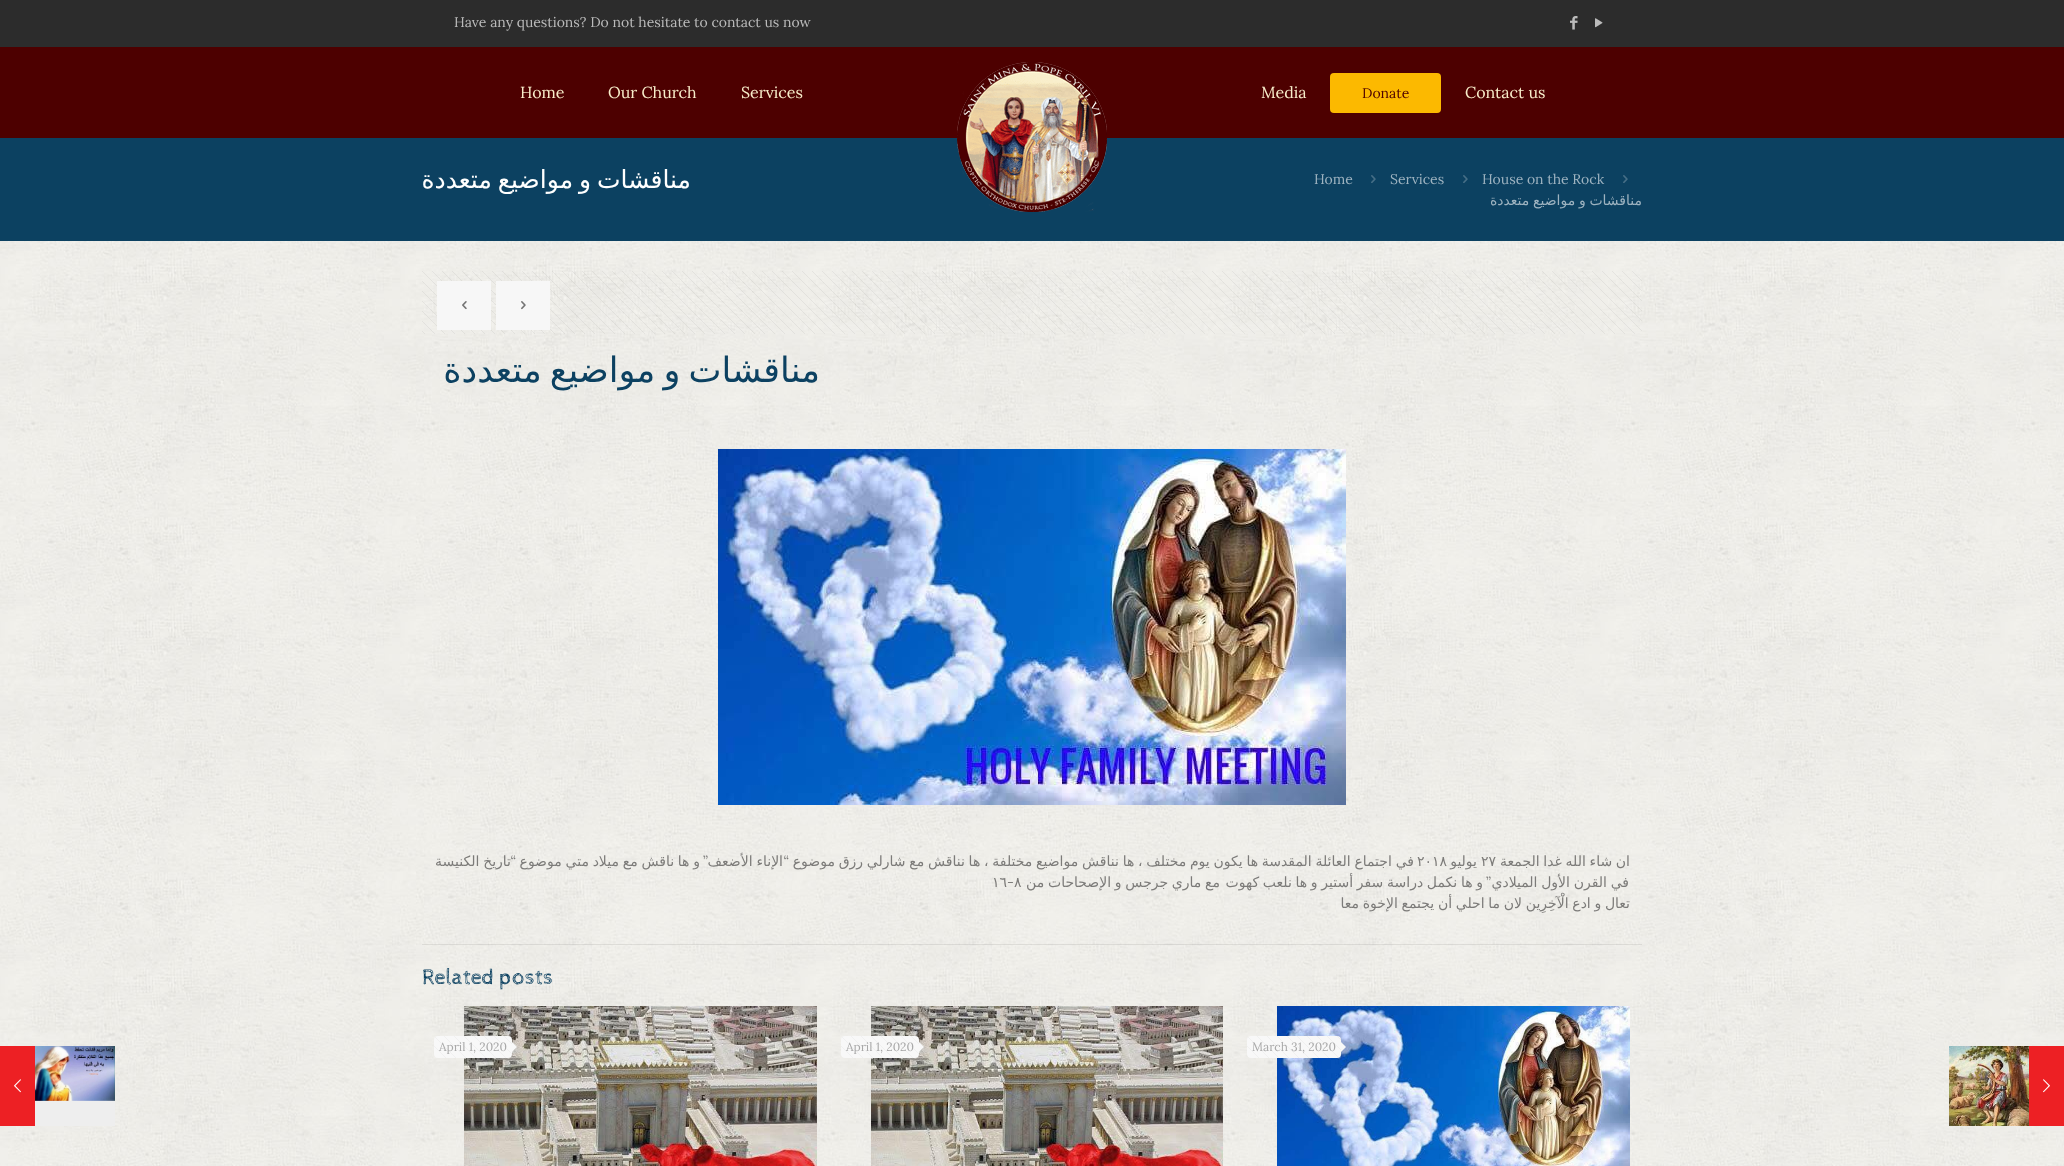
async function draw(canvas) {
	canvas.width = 2064;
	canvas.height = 1166;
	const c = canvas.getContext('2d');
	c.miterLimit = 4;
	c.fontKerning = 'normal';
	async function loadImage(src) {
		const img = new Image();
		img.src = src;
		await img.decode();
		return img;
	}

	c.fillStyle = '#fff';
	c.fillRect(0, 0, 2064, 1166);
	c.drawImage(await loadImage('img1.png'), 0, 241, 2064, 925);
	c.fillStyle = '#2c2c2c';
	c.fillRect(0, 0, 2064, 47);
	c.drawImage(await loadImage('img2.png'), 1595, 18, 8, 10);
	c.drawImage(await loadImage('img3.png'), 1570, 16, 8, 14);
	c.font = '14px Lora';
	c.fillStyle = '#bbb';
	c.fillText('Have any questions? Do not hesitate to contact us now', 454, 27);
	c.fillStyle = '#4d0000';
	c.fillRect(0, 47, 2064, 91);
	c.fillStyle = '#0c4161';
	c.fillRect(0, 138, 2064, 103);
	c.drawImage(await loadImage('img4.png'), 957, 62, 150, 150);
	c.font = '16px Lora';
	c.fillStyle = '#f8edca';
	c.fillText('Contact us', 1465, 98);
	c.fillStyle = '#fcb900';
	c.beginPath();
	c.roundRect(1330, 73, 111, 40, 4);
	c.fill();
	c.font = '14px Lora';
	c.fillStyle = '#4d0000';
	c.fillText('Donate', 1362, 98);
	c.font = '16px Lora';
	c.fillStyle = '#f8edca';
	for (const [text, x, y] of [
		['Media', 1261, 98],
		['Services', 741, 98],
		['Our Church', 608, 98],
		['Home', 520, 98],
	]) {
		c.fillText(text, x, y);
	}
	c.drawImage(await loadImage('img5.png'), 1623, 175, 5, 8);
	c.font = '14px Lora';
	c.fillStyle = '#9eb3c0';
	c.fillText('House on the Rock', 1482, 184);
	c.drawImage(await loadImage('img5.png'), 1463, 175, 5, 8);
	c.fillText('Services', 1390, 184);
	c.drawImage(await loadImage('img5.png'), 1371, 175, 5, 8);
	c.fillText('Home', 1314, 184);
	c.wordSpacing = '-0.75px';
	c.direction = 'rtl';
	c.font = '14px DejaVu Sans';
	c.fillText('مناقشات و مواضيع متعددة', 1642, 205);
	c.wordSpacing = '-2px';
	c.font = '25px DejaVu Sans';
	c.fillStyle = '#fff';
	c.fillText('مناقشات و مواضيع متعددة', 691, 188);
	c.drawImage(await loadImage('img6.png'), 422, 271, 1220, 63);
	c.fillStyle = '#f7f7f7';
	c.fillRect(496, 281, 54, 49);
	c.drawImage(await loadImage('img7.png'), 521, 301, 5, 9);
	c.fillRect(437, 281, 54, 49);
	c.drawImage(await loadImage('img8.png'), 462, 301, 5, 9);
	c.wordSpacing = '-3px';
	c.font = '35px DejaVu Sans';
	c.fillStyle = '#0c4161';
	c.fillText('مناقشات و مواضيع متعددة', 820, 382);
	c.drawImage(await loadImage('img9.png'), 718, 449, 628, 356);
	c.wordSpacing = '-0.75px';
	c.font = '14px DejaVu Sans';
	c.fillStyle = '#7c7b79';
	c.fillText('ان شاء الله غدا الجمعة', 1630, 866);
	c.wordSpacing = '0px';
	c.direction = 'ltr';
	c.fillText('٢٧', 1481, 866);
	c.direction = 'rtl';
	c.fillText('يوليو', 1477, 866);
	c.wordSpacing = '-0.7px';
	c.fillText('في اجتماع العائلة المقدسة ها يكون يوم مختلف ، ها نناقش مواضيع مختلفة ، ها نناقش مع شارلي رزق موضوع', 1414, 866);
	c.wordSpacing = '0px';
	c.direction = 'ltr';
	c.fillText('٢٠١٨', 1417, 866);
	c.direction = 'rtl';
	c.font = '14px Lora';
	c.fillText('“', 789, 866);
	c.wordSpacing = '-0.7px';
	c.font = '14px DejaVu Sans';
	c.fillText('الإناء الأضعف', 783, 866);
	c.wordSpacing = '0px';
	c.font = '14px Lora';
	c.fillText('”', 708, 866);
	c.wordSpacing = '-0.7px';
	c.font = '14px DejaVu Sans';
	c.fillText('و ها ناقش مع ميلاد متي موضوع', 700, 866);
	c.wordSpacing = '0px';
	c.font = '14px Lora';
	c.fillText('“', 516, 866);
	c.wordSpacing = '-0.7px';
	c.font = '14px DejaVu Sans';
	c.fillText('تاريخ الكنيسة', 511, 866);
	c.wordSpacing = '-0.75px';
	for (const [text, x, y] of [
		['في القرن الأول الميلادي', 1629, 887],
		['و ها نكمل دراسة سفر أستير و ها نلعب كهوت', 1483, 887],
		['مع ماري جرجس و الإصحاحات من', 1220, 887],
	]) {
		c.fillText(text, x, y);
	}
	c.wordSpacing = '0px';
	c.font = '14px Lora';
	c.fillText('”', 1491, 887);
	c.direction = 'ltr';
	c.font = '14px DejaVu Sans';
	c.fillText('٨', 1014, 887);
	c.font = '14px Lora';
	c.fillText('-', 1007, 887);
	c.font = '14px DejaVu Sans';
	c.fillText('١٦', 992, 887);
	c.wordSpacing = '-0.75px';
	c.direction = 'rtl';
	c.fillText('تعال و ادع الْآخِرِين لان ما احلي أن يجتمع الإخوة معا', 1630, 908);
	c.fillStyle = '#00000014';
	c.fillRect(422, 944, 1220, 1);
	c.wordSpacing = '0px';
	c.direction = 'ltr';
	c.font = '22px Cabin Sketch';
	c.fillStyle = '#0c4161';
	c.fillText('Related posts', 422, 984);
	c.drawImage(await loadImage('img10.png'), 1277, 1006, 353, 160);
	c.fillStyle = '#f8f8f8';
	c.beginPath();
	c.roundRect(1247, 1036, 94, 22, 4);
	c.fill();
	c.drawImage(await loadImage('img11.png'), 1247, 1036, 94, 22);
	c.beginPath();
	c.moveTo(1341, 1052);
	c.lineTo(1341, 1042);
	c.lineTo(1346, 1047);
	c.closePath();
	c.fill();
	c.font = '12px Lora';
	c.fillStyle = '#a8a8a8';
	c.fillText('March 31, 2020', 1252, 1051);
	c.drawImage(await loadImage('img12.png'), 871, 1006, 352, 160);
	c.fillStyle = '#f8f8f8';
	c.beginPath();
	c.roundRect(841, 1036, 78, 22, 4);
	c.fill();
	c.drawImage(await loadImage('img13.png'), 841, 1036, 78, 22);
	c.beginPath();
	c.moveTo(919, 1052);
	c.lineTo(919, 1042);
	c.lineTo(924, 1047);
	c.closePath();
	c.fill();
	c.fillStyle = '#a8a8a8';
	c.fillText('April 1, 2020', 846, 1051);
	c.drawImage(await loadImage('img14.png'), 464, 1006, 353, 160);
	c.fillStyle = '#f8f8f8';
	c.beginPath();
	c.roundRect(434, 1036, 78, 22, 4);
	c.fill();
	c.drawImage(await loadImage('img15.png'), 434, 1036, 78, 22);
	c.beginPath();
	c.moveTo(512, 1052);
	c.lineTo(512, 1042);
	c.lineTo(517, 1047);
	c.closePath();
	c.fill();
	c.fillStyle = '#a8a8a8';
	c.fillText('April 1, 2020', 439, 1051);
	c.fillStyle = '#ed2024';
	c.fillRect(2029, 1046, 35, 80);
	c.drawImage(await loadImage('img16.png'), 2043, 1079, 7, 14);
	c.drawImage(await loadImage('img17.png'), 1949, 1046, 80, 80);
	c.fillStyle = '#eee';
	c.fillRect(35, 1100, 80, 26);
	c.drawImage(await loadImage('img18.png'), 35, 1046, 80, 55);
	c.fillStyle = '#ed2024';
	c.fillRect(0, 1046, 35, 80);
	c.drawImage(await loadImage('img19.png'), 14, 1079, 7, 14);
}

draw(document.querySelector('canvas'));
